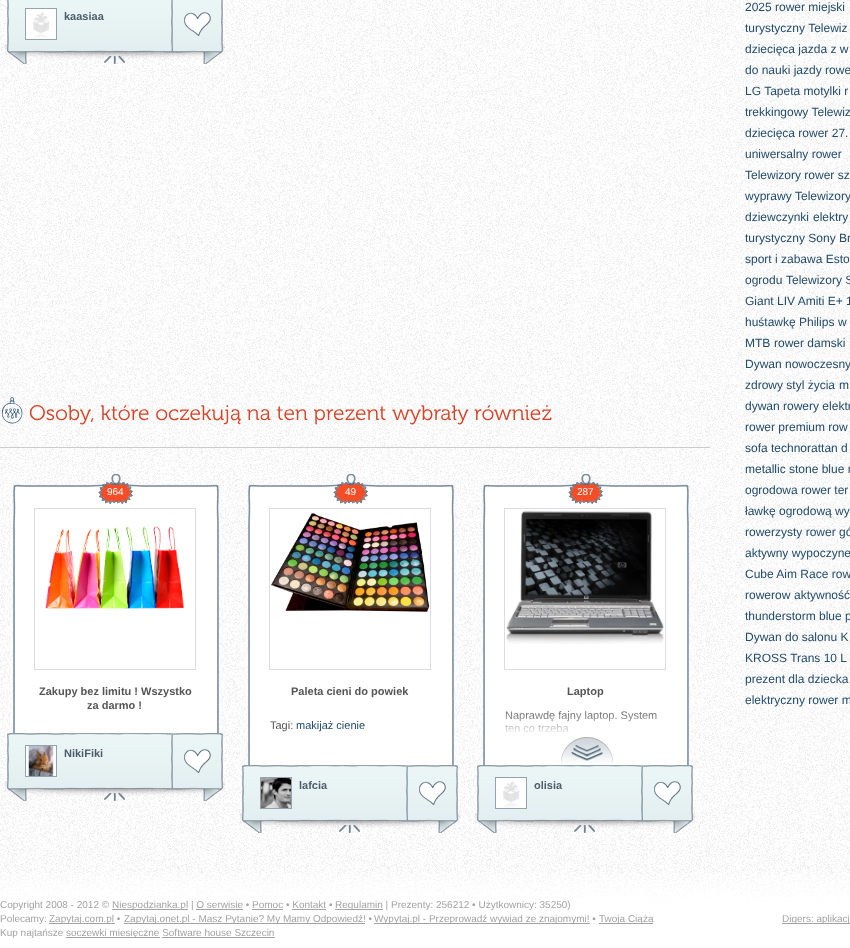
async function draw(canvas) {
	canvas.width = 850;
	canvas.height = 948;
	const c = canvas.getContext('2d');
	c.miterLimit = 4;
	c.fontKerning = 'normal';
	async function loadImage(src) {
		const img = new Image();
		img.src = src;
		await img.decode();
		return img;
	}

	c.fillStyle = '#fff';
	c.fillRect(0, 0, 850, 948);
	c.drawImage(await loadImage('img1.png'), 0, 0, 850, 924);
	c.drawImage(await loadImage('img2.png'), 5, 0, 220, 66);
	c.strokeStyle = '#94a3ae';
	c.strokeRect(25.5, 8.5, 31, 31);
	c.drawImage(await loadImage('img3.png'), 26, 9, 30, 30);
	c.font = 'bold 11px Liberation Sans';
	c.fillStyle = '#4c5d6b';
	c.fillText('kaasiaa', 64, 20);
	c.drawImage(await loadImage('img4.png'), 184, 12, 27, 24);
	c.fillStyle = '#ccc';
	c.fillRect(0, 447, 710, 1);
	c.font = '38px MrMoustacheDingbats';
	c.fillStyle = '#224a6a';
	c.fillText('E', 0, 423);
	c.font = '300 21.1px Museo';
	c.fillStyle = '#d64326';
	c.fillText('Osoby, które oczekują na ten prezent wybrały również', 29, 420);
	c.drawImage(await loadImage('img5.png'), 5, 537, 220, 196);
	c.drawImage(await loadImage('img6.png'), 5, 468, 220, 69);
	c.drawImage(await loadImage('img7.png'), 98, 482, 35, 22);
	c.font = '10px Liberation Sans';
	c.fillStyle = '#fff';
	c.fillText('964', 107, 495);
	c.strokeStyle = '#d9dde2';
	c.strokeRect(34.5, 508.5, 161, 161);
	c.drawImage(await loadImage('img8.png'), 45, 526, 140, 83);
	c.font = 'bold 11px Liberation Sans';
	c.fillStyle = '#555';
	c.fillText('Zakupy bez limitu ! Wszystko', 39, 695);
	c.fillText('za darmo !', 87, 709);
	c.drawImage(await loadImage('img9.png'), 5, 733, 220, 70);
	c.strokeStyle = '#94a3ae';
	c.strokeRect(25.5, 745.5, 31, 31);
	c.drawImage(await loadImage('img10.png'), 26, 746, 30, 30);
	c.fillStyle = '#4c5d6b';
	c.fillText('NikiFiki', 64, 757);
	c.drawImage(await loadImage('img4.png'), 184, 749, 27, 24);
	c.drawImage(await loadImage('img11.png'), 240, 537, 220, 228);
	c.drawImage(await loadImage('img6.png'), 240, 468, 220, 69);
	c.drawImage(await loadImage('img7.png'), 333, 482, 35, 22);
	c.font = '10px Liberation Sans';
	c.fillStyle = '#fff';
	c.fillText('49', 345, 495);
	c.strokeStyle = '#d9dde2';
	c.strokeRect(269.5, 508.5, 161, 161);
	c.drawImage(await loadImage('img12.png'), 270, 513, 160, 99);
	c.font = 'bold 11px Liberation Sans';
	c.fillStyle = '#555';
	c.fillText('Paleta cieni do powiek', 291, 695);
	c.font = '11px Liberation Sans';
	c.fillText('Tagi:', 270, 729);
	c.fillStyle = '#224a6a';
	c.fillText('makijaż cienie', 296, 729);
	c.drawImage(await loadImage('img9.png'), 240, 765, 220, 70);
	c.strokeStyle = '#94a3ae';
	c.strokeRect(260.5, 777.5, 31, 31);
	c.drawImage(await loadImage('img13.png'), 261, 778, 30, 30);
	c.font = 'bold 11px Liberation Sans';
	c.fillStyle = '#4c5d6b';
	c.fillText('lafcia', 299, 789);
	c.drawImage(await loadImage('img4.png'), 419, 781, 27, 24);
	c.drawImage(await loadImage('img11.png'), 475, 537, 220, 228);
	c.drawImage(await loadImage('img6.png'), 475, 468, 220, 69);
	c.drawImage(await loadImage('img7.png'), 568, 482, 35, 22);
	c.font = '10px Liberation Sans';
	c.fillStyle = '#fff';
	c.fillText('287', 577, 495);
	c.strokeStyle = '#d9dde2';
	c.strokeRect(504.5, 508.5, 161, 161);
	c.drawImage(await loadImage('img14.png'), 506, 510, 158, 134);
	c.font = 'bold 11px Liberation Sans';
	c.fillStyle = '#555';
	c.fillText('Laptop', 567, 695);
	c.font = '11px Liberation Sans';
	c.fillStyle = '#777';
	c.fillText('Naprawdę fajny laptop. System', 505, 719);
	c.fillText('ten co trzeba', 505, 732);
	c.drawImage(await loadImage('img15.png'), 505, 715, 152, 49);
	c.drawImage(await loadImage('img9.png'), 475, 765, 220, 70);
	c.strokeStyle = '#94a3ae';
	c.strokeRect(495.5, 777.5, 31, 31);
	c.drawImage(await loadImage('img3.png'), 496, 778, 30, 30);
	c.font = 'bold 11px Liberation Sans';
	c.fillStyle = '#4c5d6b';
	c.fillText('olisia', 534, 789);
	c.drawImage(await loadImage('img4.png'), 654, 781, 27, 24);
	c.font = '12px Liberation Sans';
	c.fillStyle = '#224a6a';
	for (const [text, x, y] of [
		['2025 rower miejski', 745, 11],
		['turystyczny Telewiz', 745, 32],
		['dziecięca jazda z w', 745, 53],
		['do nauki jazdy rowe', 745, 74],
		['LG Tapeta motylki r', 745, 95],
		['trekkingowy Telewiz', 745, 116],
		['dziecięca rower 27.', 745, 137],
		['uniwersalny rower', 745, 158],
		['Telewizory rower sz', 745, 179],
		['wyprawy', 745, 200],
		['Telewizory', 795, 200],
		['dziewczynki', 745, 221],
		['elektry', 813, 221],
		['turystyczny Sony Br', 745, 242],
		['sport i zabawa Esto', 745, 263],
		['ogrodu', 745, 284],
		['Telewizory S', 786, 284],
		['Giant LIV Amiti E+ 1', 745, 305],
		['huśtawkę Philips', 745, 326],
		['w', 838, 326],
		['MTB', 745, 347],
		['rower damski', 774, 347],
		['Dywan nowoczesny', 745, 368],
		['zdrowy styl życia', 745, 389],
		['m', 839, 389],
		['dywan rowery elektr', 745, 410],
		['rower premium row', 745, 431],
		['sofa technorattan d', 745, 452],
		['metallic stone blue r', 745, 473],
		['ogrodowa', 745, 494],
		['rower ter', 801, 494],
		['ławkę ogrodową wy', 745, 515],
		['rowerzysty rower gó', 745, 536],
		['aktywny wypoczyne', 745, 557],
		['Cube Aim Race row', 745, 578],
		['rowerow', 745, 599],
		['aktywność', 794, 599],
		['thunderstorm blue', 745, 620],
		['p', 845, 620],
		['Dywan do salonu K', 745, 641],
		['KROSS Trans 10 L', 745, 662],
		['prezent dla dziecka', 745, 683],
		['elektryczny rower m', 745, 704],
	]) {
		c.fillText(text, x, y);
	}
	c.drawImage(await loadImage('img16.png'), 0, 873, 850, 75);
	c.font = '10px Liberation Sans';
	c.fillStyle = '#a3a3a3';
	c.fillText('Copyright 2008 - 2012 ©', 0, 908);
	c.fillRect(112, 909, 76, 1);
	c.fillText('Niespodzianka.pl | O serwisie • Pomoc • Kontakt •', 112, 908);
	c.fillRect(335, 909, 48, 1);
	c.fillText('Regulamin | Prezenty: 256212 • Użytkownicy: 35250)', 335, 908);
	for (const [x, y, w, h, color] of [
		[196, 909, 47, 1, '#a3a3a3'],
		[252, 909, 31, 1, '#a3a3a3'],
		[292, 909, 34, 1, '#a3a3a3'],
	]) {
		c.fillStyle = color;
		c.fillRect(x, y, w, h);
	}
	c.fillText('Polecamy:', 0, 922);
	c.fillRect(49, 923, 66, 1);
	c.fillText('Zapytaj.com.pl •', 49, 922);
	c.fillRect(124, 923, 241, 1);
	c.fillText('Zapytaj.onet.pl - Masz Pytanie? My Mamy Odpowiedź! •', 124, 922);
	c.fillRect(374, 923, 216, 1);
	c.fillText('Wypytaj.pl - Przeprowadź wywiad ze znajomymi! •', 374, 922);
	c.fillRect(599, 923, 54, 1);
	c.fillText('Twoja Ciąża', 599, 922);
	c.fillRect(782, 923, 68, 1);
	c.fillText('Digers: aplikacj', 782, 922);
	c.fillText('Kup najtańsze', 0, 936);
	c.fillRect(66, 937, 94, 1);
	c.fillText('soczewki miesięczne Software house Szczecin', 66, 936);
	c.fillRect(162, 937, 113, 1);
}

draw(document.querySelector('canvas'));
